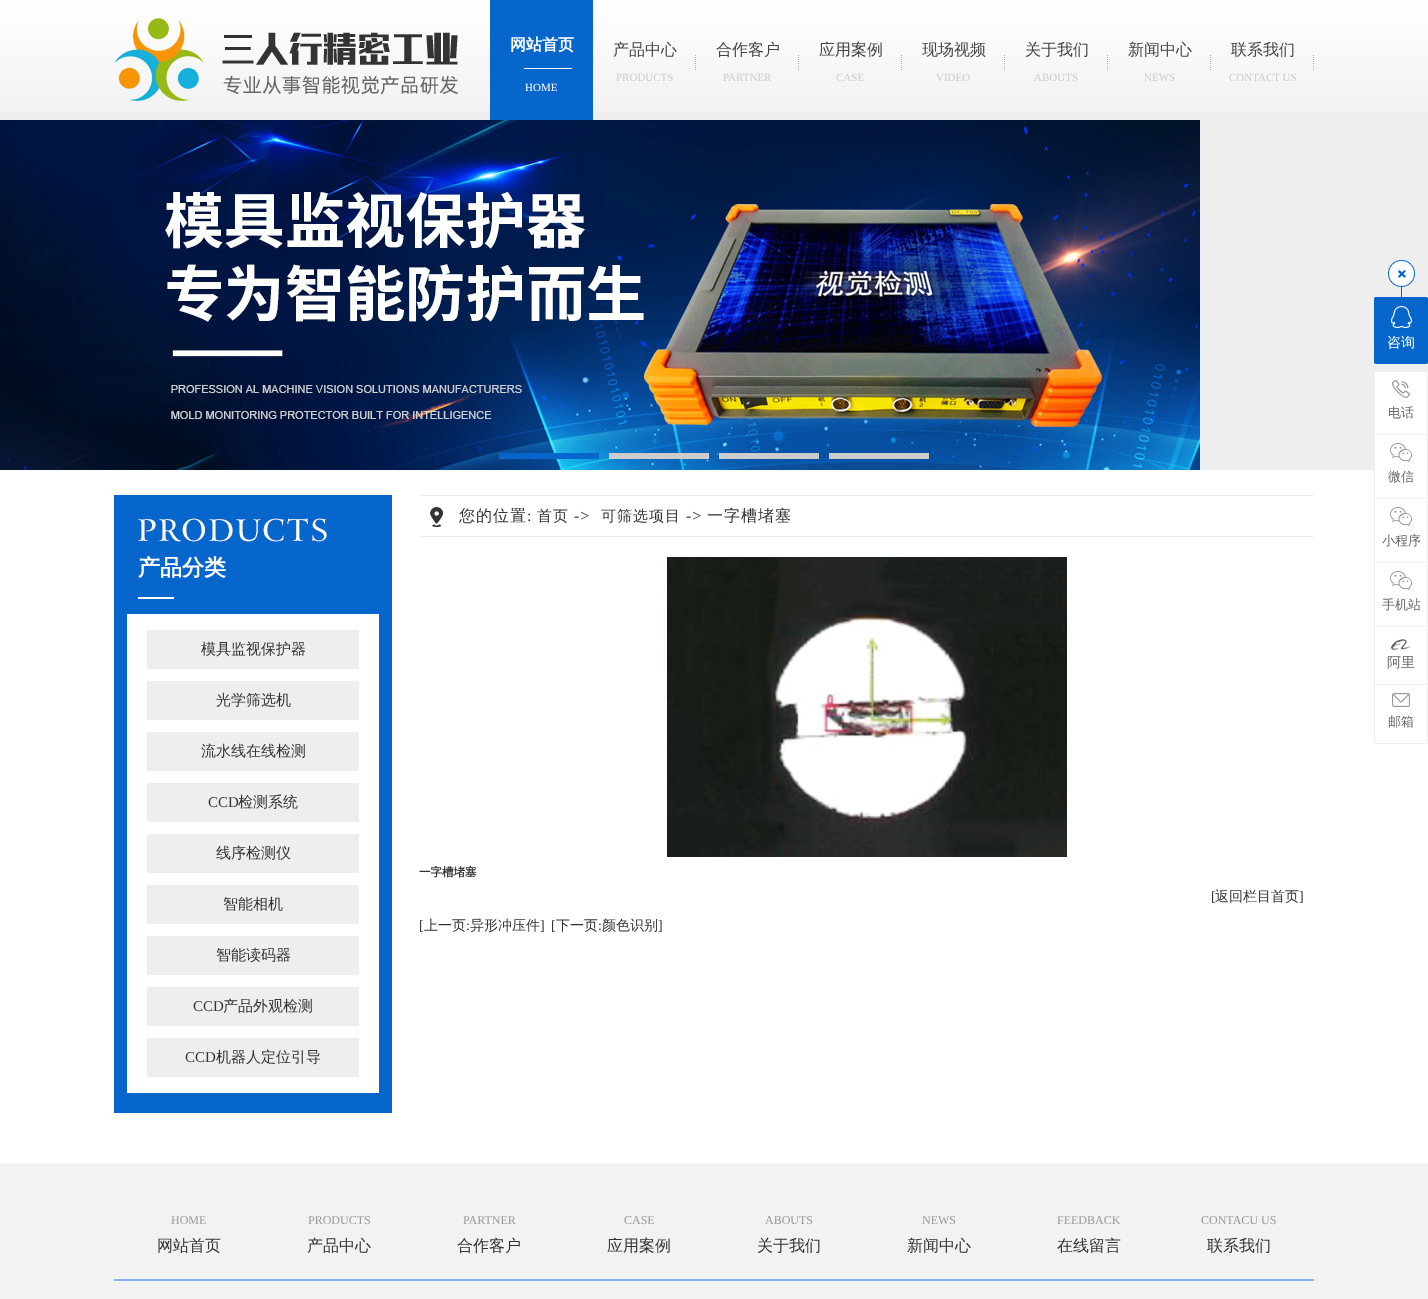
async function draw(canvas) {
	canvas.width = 1428;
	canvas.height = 1299;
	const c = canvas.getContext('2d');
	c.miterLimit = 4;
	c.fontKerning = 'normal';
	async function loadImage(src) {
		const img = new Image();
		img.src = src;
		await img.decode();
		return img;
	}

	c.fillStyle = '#fff';
	c.fillRect(0, 0, 1428, 1299);
	c.drawImage(await loadImage('img1.png'), 0, 0, 1428, 112);
	c.drawImage(await loadImage('img2.png'), 114, 18, 344, 83);
	c.fillStyle = '#eee';
	c.fillRect(0, 112, 1428, 358);
	c.fillStyle = '#0666cc';
	c.fillRect(490, 0, 103, 120);
	c.font = 'bold 16px WenQuanYi Zen Hei';
	c.fillStyle = '#fff';
	c.fillText('网站首页', 510, 50);
	c.fillRect(524, 68, 48, 1);
	c.font = '11px Liberation Serif';
	c.fillText('HOME', 525, 91);
	c.drawImage(await loadImage('img3.png'), 695, 55, 1, 15);
	c.font = '500 16px WenQuanYi Zen Hei';
	c.fillStyle = '#454545';
	c.fillText('产品中心', 613, 55);
	c.font = '11px Liberation Serif';
	c.fillStyle = '#ccc';
	c.fillText('PRODUCTS', 616, 81);
	c.drawImage(await loadImage('img3.png'), 798, 55, 1, 15);
	c.font = '500 16px WenQuanYi Zen Hei';
	c.fillStyle = '#454545';
	c.fillText('合作客户', 716, 55);
	c.font = '11px Liberation Serif';
	c.fillStyle = '#ccc';
	c.fillText('PARTNER', 723, 81);
	c.drawImage(await loadImage('img3.png'), 901, 55, 1, 15);
	c.font = '500 16px WenQuanYi Zen Hei';
	c.fillStyle = '#454545';
	c.fillText('应用案例', 819, 55);
	c.font = '11px Liberation Serif';
	c.fillStyle = '#ccc';
	c.fillText('CASE', 836, 81);
	c.drawImage(await loadImage('img3.png'), 1004, 55, 1, 15);
	c.font = '500 16px WenQuanYi Zen Hei';
	c.fillStyle = '#454545';
	c.fillText('现场视频', 922, 55);
	c.font = '11px Liberation Serif';
	c.fillStyle = '#ccc';
	c.fillText('VIDEO', 936, 81);
	c.drawImage(await loadImage('img3.png'), 1107, 55, 1, 15);
	c.font = '500 16px WenQuanYi Zen Hei';
	c.fillStyle = '#454545';
	c.fillText('关于我们', 1025, 55);
	c.font = '11px Liberation Serif';
	c.fillStyle = '#ccc';
	c.fillText('ABOUTS', 1034, 81);
	c.drawImage(await loadImage('img3.png'), 1210, 55, 1, 15);
	c.font = '500 16px WenQuanYi Zen Hei';
	c.fillStyle = '#454545';
	c.fillText('新闻中心', 1128, 55);
	c.font = '11px Liberation Serif';
	c.fillStyle = '#ccc';
	c.fillText('NEWS', 1144, 81);
	c.drawImage(await loadImage('img3.png'), 1313, 55, 1, 15);
	c.font = '500 16px WenQuanYi Zen Hei';
	c.fillStyle = '#454545';
	c.fillText('联系我们', 1231, 55);
	c.font = '11px Liberation Serif';
	c.fillStyle = '#ccc';
	c.fillText('CONTACT US', 1229, 81);
	c.drawImage(await loadImage('img4.png'), 0, 120, 1200, 350);
	for (const [x, y, w, h, color] of [
		[499, 453, 100, 6, '#0666cc'],
		[609, 453, 100, 6, '#ccc'],
		[719, 453, 100, 6, '#ccc'],
		[829, 453, 100, 6, '#ccc'],
		[114, 495, 278, 618, '#0666cc'],
	]) {
		c.fillStyle = color;
		c.fillRect(x, y, w, h);
	}
	c.drawImage(await loadImage('img5.png'), 138, 511, 192, 88);
	c.font = 'bold 22px WenQuanYi Zen Hei';
	c.fillStyle = '#fff';
	c.fillText('产品分类', 138, 575);
	c.fillRect(127, 614, 252, 479);
	c.fillStyle = '#eee';
	c.fillRect(147, 630, 212, 39);
	c.font = '500 15px WenQuanYi Zen Hei';
	c.fillStyle = '#333';
	c.fillText('模具监视保护器', 201, 654);
	c.fillStyle = '#eee';
	c.fillRect(147, 681, 212, 39);
	c.fillStyle = '#333';
	c.fillText('光学筛选机', 216, 705);
	c.fillStyle = '#eee';
	c.fillRect(147, 732, 212, 39);
	c.fillStyle = '#333';
	c.fillText('流水线在线检测', 201, 756);
	c.fillStyle = '#eee';
	c.fillRect(147, 783, 212, 39);
	c.font = '15px Liberation Serif';
	c.fillStyle = '#333';
	c.fillText('CCD', 208, 807);
	c.font = '500 15px WenQuanYi Zen Hei';
	c.fillText('检测系统', 238, 807);
	c.fillStyle = '#eee';
	c.fillRect(147, 834, 212, 39);
	c.fillStyle = '#333';
	c.fillText('线序检测仪', 216, 858);
	c.fillStyle = '#eee';
	c.fillRect(147, 885, 212, 39);
	c.fillStyle = '#333';
	c.fillText('智能相机', 223, 909);
	c.fillStyle = '#eee';
	c.fillRect(147, 936, 212, 39);
	c.fillStyle = '#333';
	c.fillText('智能读码器', 216, 960);
	c.fillStyle = '#eee';
	c.fillRect(147, 987, 212, 39);
	c.font = '15px Liberation Serif';
	c.fillStyle = '#333';
	c.fillText('CCD', 193, 1011);
	c.font = '500 15px WenQuanYi Zen Hei';
	c.fillText('产品外观检测', 223, 1011);
	c.fillStyle = '#eee';
	c.fillRect(147, 1038, 212, 39);
	c.font = '15px Liberation Serif';
	c.fillStyle = '#333';
	c.fillText('CCD', 185, 1062);
	c.font = '500 15px WenQuanYi Zen Hei';
	c.fillText('机器人定位引导', 216, 1062);
	c.drawImage(await loadImage('img6.png'), 430, 507, 13, 20);
	c.fillStyle = '#eee';
	c.fillRect(419, 495, 895, 1);
	c.fillRect(419, 536, 895, 1);
	c.letterSpacing = '1px';
	c.font = '500 16px WenQuanYi Zen Hei';
	c.fillStyle = '#333';
	c.fillText('您的位置', 459, 521);
	c.font = '16px Liberation Serif';
	c.fillText(':', 527, 521);
	c.font = '500 15px WenQuanYi Zen Hei';
	c.fillText('首页', 537, 521);
	c.font = '16px Liberation Serif';
	c.fillText('->', 574, 521);
	c.font = '500 15px WenQuanYi Zen Hei';
	c.fillText('可筛选项目', 601, 521);
	c.font = '16px Liberation Serif';
	c.fillText('->', 686, 521);
	c.font = '500 16px WenQuanYi Zen Hei';
	c.fillText('一字槽堵塞', 707, 521);
	c.drawImage(await loadImage('img7.png'), 667, 557, 400, 300);
	c.letterSpacing = '0px';
	c.font = 'bold 11.5px WenQuanYi Zen Hei';
	c.fillText('一字槽堵塞', 419, 876);
	c.font = '14px Liberation Serif';
	c.fillText('[', 1211, 901);
	c.font = '500 14px WenQuanYi Zen Hei';
	c.fillText('返回栏目首页', 1215, 901);
	c.font = '14px Liberation Serif';
	c.fillText(']', 1299, 901);
	c.fillText('[', 419, 930);
	c.font = '500 14px WenQuanYi Zen Hei';
	c.fillText('上一页', 424, 930);
	c.font = '14px Liberation Serif';
	c.fillText(':', 466, 930);
	c.font = '500 14px WenQuanYi Zen Hei';
	c.fillText('异形冲压件', 470, 930);
	c.font = '14px Liberation Serif';
	c.fillText(']', 540, 930);
	c.fillText('[', 551, 930);
	c.font = '500 14px WenQuanYi Zen Hei';
	c.fillText('下一页', 556, 930);
	c.font = '14px Liberation Serif';
	c.fillText(':', 598, 930);
	c.font = '500 14px WenQuanYi Zen Hei';
	c.fillText('颜色识别', 602, 930);
	c.font = '14px Liberation Serif';
	c.fillText(']', 658, 930);
	c.drawImage(await loadImage('img8.png'), 1388, 260, 27, 27);
	c.fillStyle = '#0666cc';
	c.beginPath();
	c.roundRect(1374, 297, 54, 67, 2);
	c.fill();
	for (const [x, y, w, h, color] of [
		[1375, 297, 52, 1, '#0666cc'],
		[1401, 287, 1, 12, '#0666cc'],
		[1427, 298, 1, 65, '#0666cc'],
		[1374, 298, 1, 65, '#0666cc'],
	]) {
		c.fillStyle = color;
		c.fillRect(x, y, w, h);
	}
	c.drawImage(await loadImage('img9.png'), 1391, 306, 21, 22);
	c.font = '500 14px WenQuanYi Zen Hei';
	c.fillStyle = '#fff';
	c.fillText('咨询', 1387, 347);
	c.beginPath();
	c.roundRect(1374, 371, 54, 63, [2, 2, 0, 0]);
	c.fill();
	for (const [x, y, w, h, color] of [
		[1375, 371, 52, 1, '#efefef'],
		[1427, 372, 1, 62, '#efefef'],
		[1374, 372, 1, 62, '#efefef'],
	]) {
		c.fillStyle = color;
		c.fillRect(x, y, w, h);
	}
	c.drawImage(await loadImage('img10.png'), 1392, 380, 18, 18);
	c.font = '500 13px WenQuanYi Zen Hei';
	c.fillStyle = '#666';
	c.fillText('电话', 1388, 417);
	for (const [x, y, w, h, color] of [
		[1375, 435, 52, 35, '#fff'],
		[1427, 470, 1, 28, '#efefef'],
		[1374, 470, 1, 28, '#efefef'],
	]) {
		c.fillStyle = color;
		c.fillRect(x, y, w, h);
	}
	c.drawImage(await loadImage('img11.png'), 1390, 443, 22, 19);
	c.fillStyle = '#666';
	c.fillText('微信', 1388, 481);
	for (const [x, y, w, h, color] of [
		[1374, 498, 54, 1, '#efefef'],
		[1427, 498, 1, 64, '#efefef'],
		[1374, 498, 1, 64, '#efefef'],
	]) {
		c.fillStyle = color;
		c.fillRect(x, y, w, h);
	}
	c.drawImage(await loadImage('img11.png'), 1390, 507, 22, 19);
	c.fillStyle = '#666';
	c.fillText('小程序', 1382, 545);
	for (const [x, y, w, h, color] of [
		[1374, 562, 54, 1, '#efefef'],
		[1427, 562, 1, 64, '#efefef'],
		[1374, 562, 1, 64, '#efefef'],
	]) {
		c.fillStyle = color;
		c.fillRect(x, y, w, h);
	}
	c.drawImage(await loadImage('img11.png'), 1390, 571, 22, 19);
	c.fillStyle = '#666';
	c.fillText('手机站', 1382, 609);
	for (const [x, y, w, h, color] of [
		[1374, 626, 54, 1, '#efefef'],
		[1427, 626, 1, 58, '#efefef'],
		[1374, 626, 1, 58, '#efefef'],
	]) {
		c.fillStyle = color;
		c.fillRect(x, y, w, h);
	}
	c.drawImage(await loadImage('img12.png'), 1391, 639, 20, 11);
	c.font = '500 14px WenQuanYi Zen Hei';
	c.fillStyle = '#666';
	c.fillText('阿里', 1387, 667);
	c.beginPath();
	c.roundRect(1374.5, 684.5, 53, 59, [0, 0, 1.5, 1.5]);
	c.strokeStyle = '#efefef';
	c.stroke();
	c.drawImage(await loadImage('img13.png'), 1392, 693, 18, 14);
	c.font = '500 13px WenQuanYi Zen Hei';
	c.fillText('邮箱', 1388, 726);
	c.fillStyle = '#f2f2f2';
	c.fillRect(0, 1163, 1428, 136);
	c.fillStyle = '#81b3f1';
	c.fillRect(114, 1279, 1200, 2);
	c.font = '12px Liberation Serif';
	c.fillStyle = '#999';
	c.fillText('HOME', 171, 1224);
	c.font = '500 16px WenQuanYi Zen Hei';
	c.fillStyle = '#333';
	c.fillText('网站首页', 157, 1251);
	c.font = '12px Liberation Serif';
	c.fillStyle = '#999';
	c.fillText('PRODUCTS', 308, 1224);
	c.font = '500 16px WenQuanYi Zen Hei';
	c.fillStyle = '#333';
	c.fillText('产品中心', 307, 1251);
	c.font = '12px Liberation Serif';
	c.fillStyle = '#999';
	c.fillText('PARTNER', 463, 1224);
	c.font = '500 16px WenQuanYi Zen Hei';
	c.fillStyle = '#333';
	c.fillText('合作客户', 457, 1251);
	c.font = '12px Liberation Serif';
	c.fillStyle = '#999';
	c.fillText('CASE', 624, 1224);
	c.font = '500 16px WenQuanYi Zen Hei';
	c.fillStyle = '#333';
	c.fillText('应用案例', 607, 1251);
	c.font = '12px Liberation Serif';
	c.fillStyle = '#999';
	c.fillText('ABOUTS', 765, 1224);
	c.font = '500 16px WenQuanYi Zen Hei';
	c.fillStyle = '#333';
	c.fillText('关于我们', 757, 1251);
	c.font = '12px Liberation Serif';
	c.fillStyle = '#999';
	c.fillText('NEWS', 922, 1224);
	c.font = '500 16px WenQuanYi Zen Hei';
	c.fillStyle = '#333';
	c.fillText('新闻中心', 907, 1251);
	c.font = '12px Liberation Serif';
	c.fillStyle = '#999';
	c.fillText('FEEDBACK', 1057, 1224);
	c.font = '500 16px WenQuanYi Zen Hei';
	c.fillStyle = '#333';
	c.fillText('在线留言', 1057, 1251);
	c.font = '12px Liberation Serif';
	c.fillStyle = '#999';
	c.fillText('CONTACU US', 1201, 1224);
	c.font = '500 16px WenQuanYi Zen Hei';
	c.fillStyle = '#333';
	c.fillText('联系我们', 1207, 1251);
}

draw(document.querySelector('canvas'));
